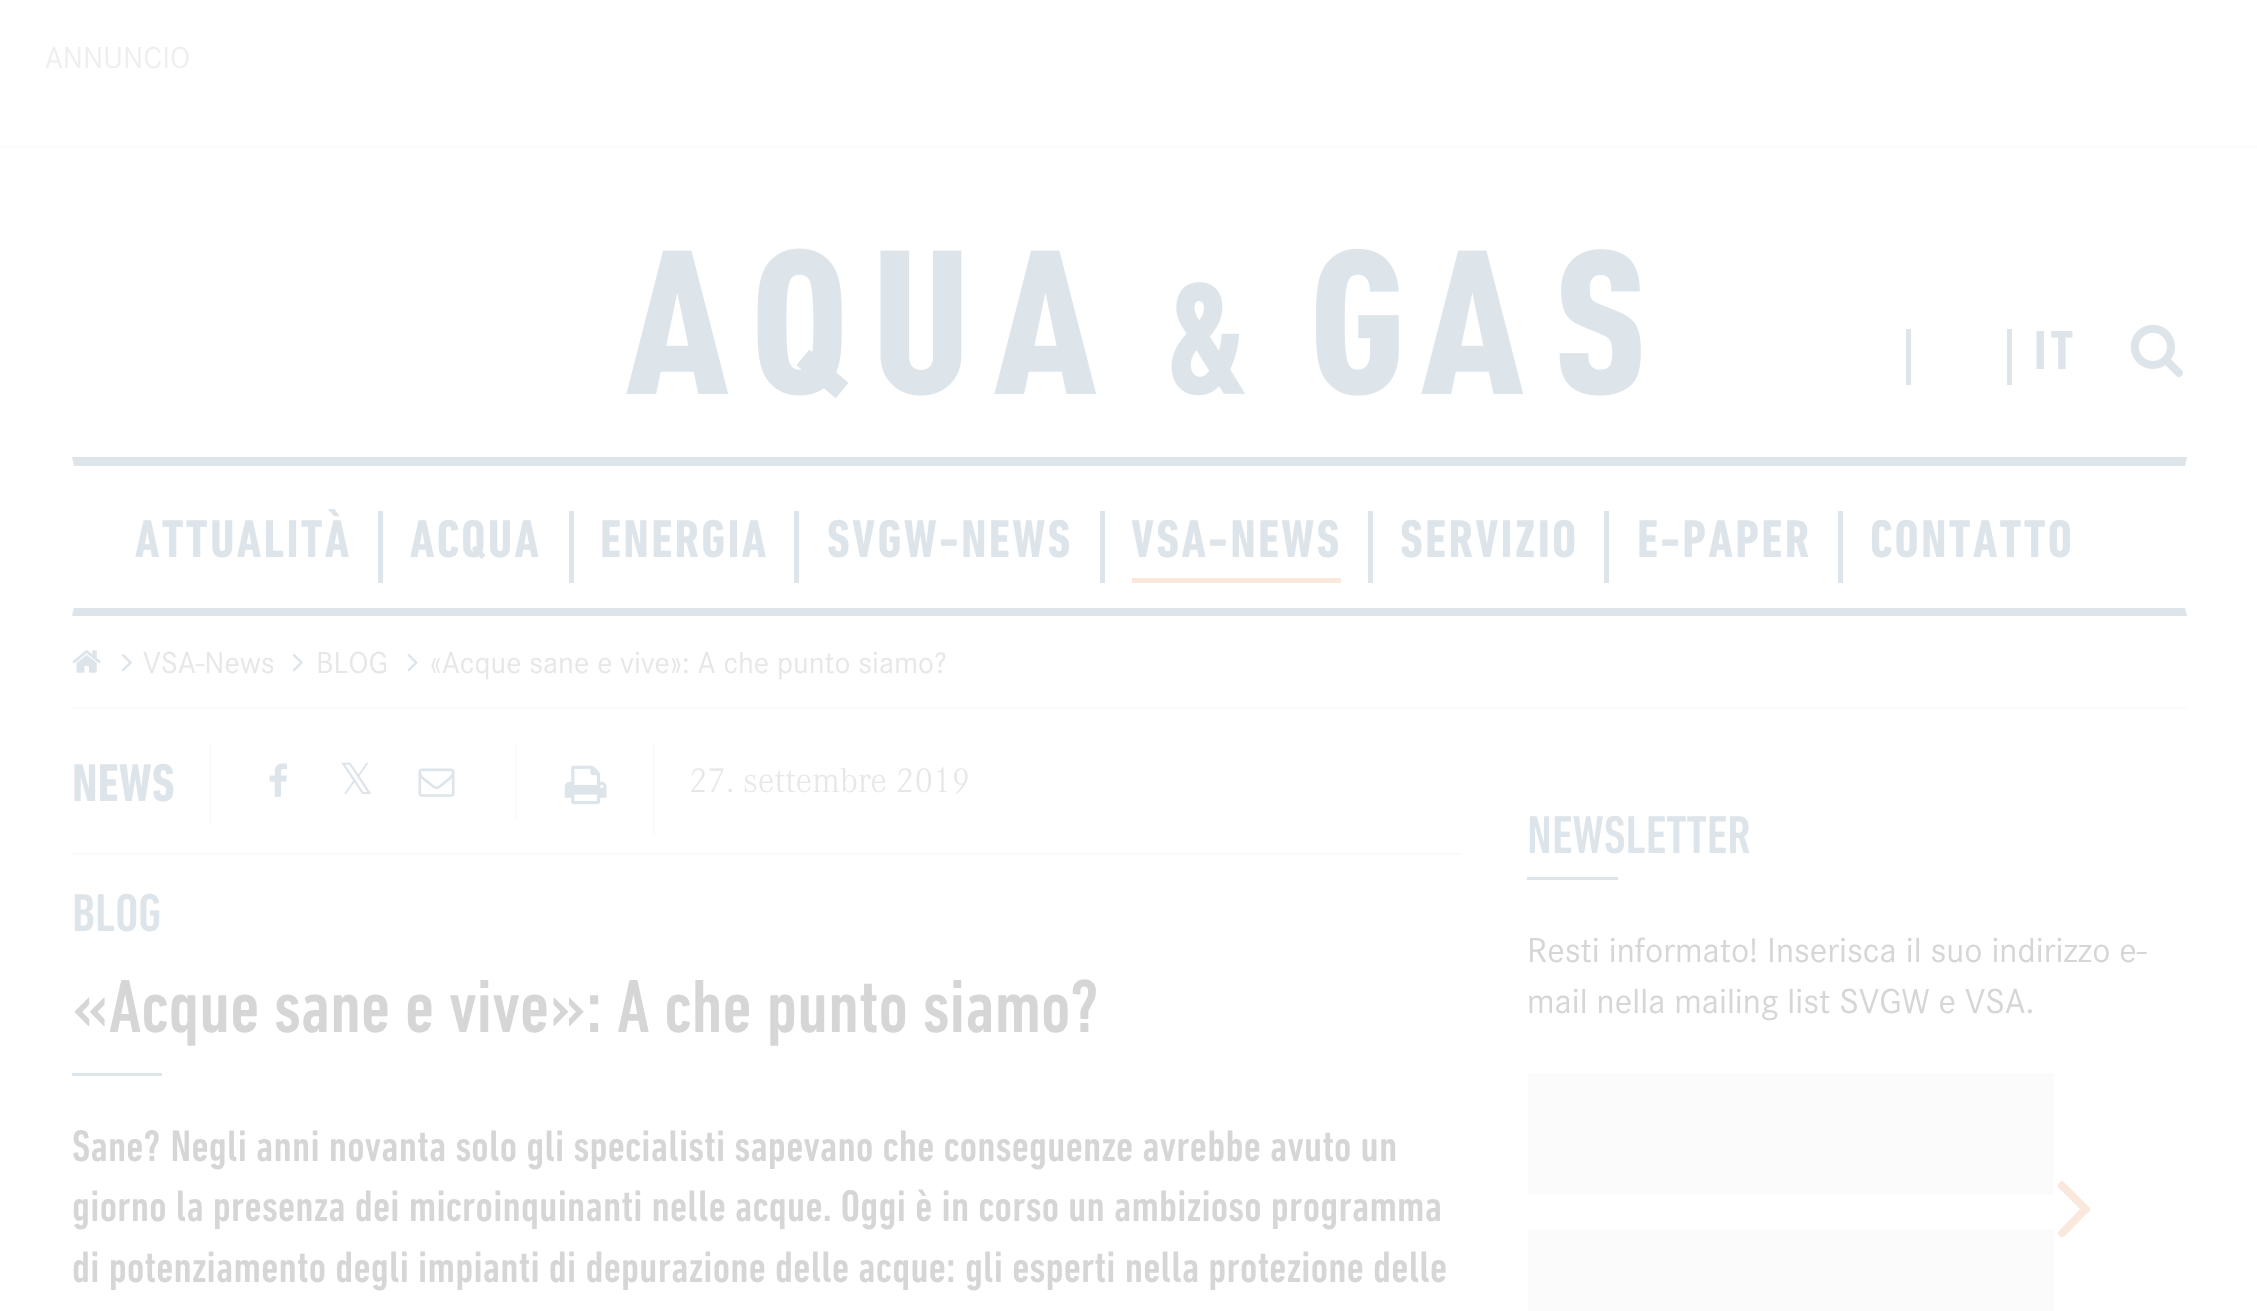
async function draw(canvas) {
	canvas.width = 2257;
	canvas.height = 1311;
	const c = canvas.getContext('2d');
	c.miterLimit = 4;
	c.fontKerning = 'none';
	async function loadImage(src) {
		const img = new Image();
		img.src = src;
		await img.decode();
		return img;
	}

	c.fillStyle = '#fff';
	c.fillRect(0, 0, 2257, 1311);
	c.fillStyle = '#fbfbfb';
	c.fillRect(0, 146, 2257, 2);
	c.font = '31.5px "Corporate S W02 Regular"';
	c.fillStyle = '#efefef';
	c.fillText('ANNUNCIO', 45, 68);
	c.drawImage(await loadImage('img1.png'), 626, 248, 1015, 151);
	c.fillStyle = '#dde4ea';
	c.fillRect(1906, 329, 5, 56);
	c.fillRect(2007, 329, 5, 56);
	c.letterSpacing = '4px';
	c.font = 'bold 56px "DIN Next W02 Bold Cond"';
	c.fillText('IT', 2034, 369);
	c.drawImage(await loadImage('img2.png'), 2130, 324, 53, 53);
	c.beginPath();
	c.moveTo(72, 457);
	c.lineTo(2187, 457);
	c.lineTo(2185, 466);
	c.lineTo(74, 466);
	c.closePath();
	c.fill();
	c.beginPath();
	c.moveTo(2187, 616);
	c.lineTo(72, 616);
	c.lineTo(74, 608);
	c.lineTo(2185, 608);
	c.closePath();
	c.fill();
	c.letterSpacing = '2.25px';
	c.font = 'bold 54px "DIN Next W02 Bold Cond"';
	c.fillText('ATTUALITÀ', 135, 557);
	c.fillRect(378, 511, 5, 72);
	c.fillText('ACQUA', 410, 557);
	c.fillRect(569, 511, 5, 72);
	c.fillText('ENERGIA', 600, 557);
	c.fillRect(794, 511, 5, 72);
	c.fillText('SVGW-NEWS', 827, 557);
	c.fillRect(1100, 511, 5, 72);
	c.fillStyle = '#fae8dd';
	c.fillRect(1132, 578, 209, 5);
	c.fillStyle = '#dde4ea';
	c.fillText('VSA-NEWS', 1131, 557);
	c.fillRect(1368, 511, 5, 72);
	c.fillText('SERVIZIO', 1400, 557);
	c.fillRect(1604, 511, 5, 72);
	c.fillText('E-PAPER', 1637, 557);
	c.fillRect(1838, 511, 5, 72);
	c.fillText('CONTATTO', 1870, 557);
	c.drawImage(await loadImage('img3.png'), 72, 650, 29, 23);
	c.drawImage(await loadImage('img4.png'), 121, 653, 11, 19);
	c.letterSpacing = '0px';
	c.font = '31.5px "Corporate S W02 Regular"';
	c.fillStyle = '#e7e7e7';
	c.fillText('VSA-News', 143, 673);
	c.drawImage(await loadImage('img4.png'), 292, 653, 11, 19);
	c.fillText('BLOG', 316, 673);
	c.drawImage(await loadImage('img5.png'), 407, 653, 11, 19);
	c.fillText('«Acque sane e vive»: A che punto siamo?', 430, 673);
	c.fillStyle = '#fafafa';
	c.fillRect(72, 707, 2115, 2);
	c.fillStyle = '#fbfbfb';
	c.fillRect(209, 743, 2, 81);
	c.font = 'bold 54px "DIN Next W02 Bold Cond"';
	c.fillStyle = '#dde4ea';
	c.fillText('NEWS', 72, 801);
	c.fillStyle = '#fbfbfb';
	c.fillRect(515, 743, 2, 78);
	c.drawImage(await loadImage('img6.png'), 269, 763, 18, 34);
	c.font = '43px DejaVu Sans';
	c.fillStyle = '#dde4ea';
	c.fillText('𝕏', 339, 794);
	c.drawImage(await loadImage('img7.png'), 418, 768, 37, 29);
	c.fillStyle = '#fbfbfb';
	c.fillRect(653, 743, 2, 92);
	c.drawImage(await loadImage('img8.png'), 564, 765, 43, 40);
	c.font = '300 36px "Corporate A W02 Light"';
	c.fillStyle = '#e7e7e7';
	c.fillText('27. settembre 2019', 689, 792);
	c.fillStyle = '#fafafa';
	c.fillRect(72, 853, 1388, 2);
	c.font = '500 54px "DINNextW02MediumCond"';
	c.fillStyle = '#dde4ea';
	c.fillText('BLOG', 72, 931);
	c.fillRect(72, 1073, 90, 3);
	c.font = '500 76.5px "DINNextW02MediumCond"';
	c.fillStyle = '#d6d6d6';
	c.fillText('«Acque sane e vive»: A che punto siamo?', 72, 1032);
	c.letterSpacing = '0.23px';
	c.font = '500 45px "DINNextW02MediumCond"';
	for (const [text, x, y] of [
		['Sane? Negli anni novanta solo gli specialisti sapevano che conseguenze avrebbe avuto un', 72, 1161],
		['giorno la presenza dei microinquinanti nelle acque. Oggi è in corso un ambizioso programma', 72, 1221],
		['di potenziamento degli impianti di depurazione delle acque: gli esperti nella protezione delle', 72, 1282],
	]) {
		c.fillText(text, x, y);
	}
	c.fillStyle = '#dde4ea';
	c.fillRect(1527, 877, 91, 3);
	c.letterSpacing = '0px';
	c.font = '500 54px "DINNextW02MediumCond"';
	c.fillText('NEWSLETTER', 1527, 853);
	c.font = '36px "Corporate S W02 Regular"';
	c.fillStyle = '#d6d6d6';
	c.fillText('Resti informato! Inserisca il suo indirizzo e-', 1527, 962);
	c.fillText('mail nella mailing list SVGW e VSA.', 1527, 1013);
	c.fillStyle = '#fbfbfb';
	c.fillRect(1528, 1073, 526, 122);
	c.fillStyle = '#fae8dd';
	c.beginPath();
	c.moveTo(2090, 1208);
	c.bezierCurveTo(2092, 1211, 2085, 1215, 2085, 1215);
	c.lineTo(2068, 1233);
	c.bezierCurveTo(2067, 1233, 2063, 1239, 2061, 1237);
	c.bezierCurveTo(2060, 1236, 2056, 1234, 2058, 1232);
	c.lineTo(2080, 1209);
	c.lineTo(2062, 1191);
	c.bezierCurveTo(2058, 1187, 2056, 1187, 2059, 1183);
	c.bezierCurveTo(2063, 1179, 2063, 1182, 2068, 1186);
	c.closePath();
	c.fill();
	c.fillStyle = '#fbfbfb';
	c.fillRect(1528, 1229, 526, 82);
}

draw(document.querySelector('canvas'));
